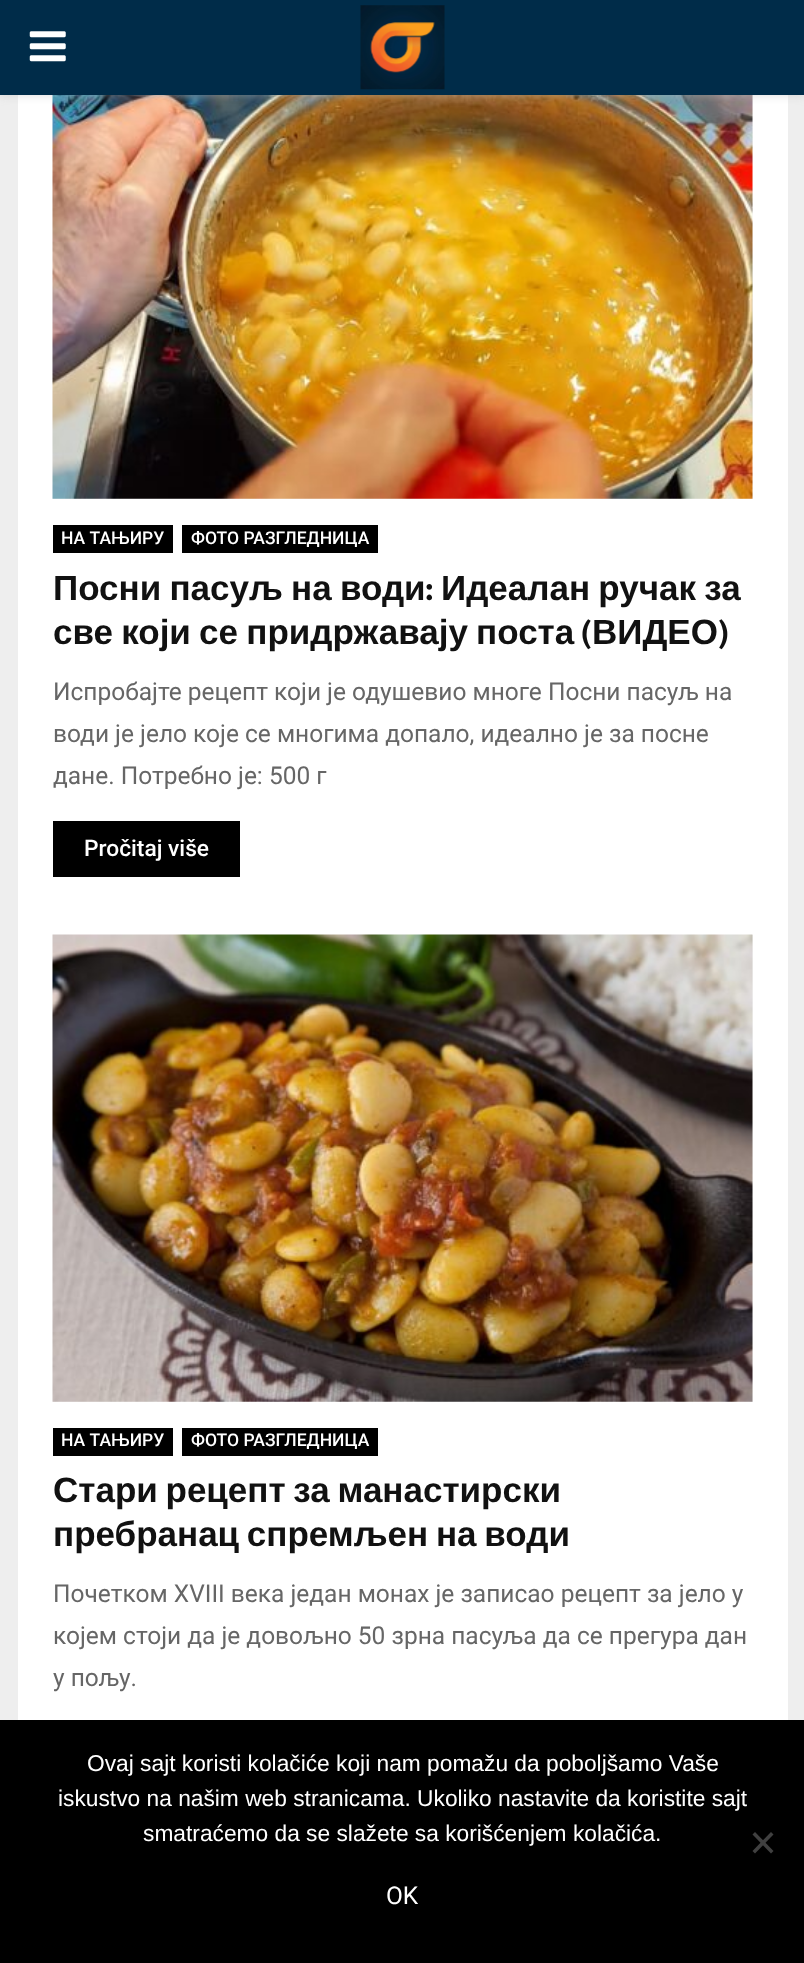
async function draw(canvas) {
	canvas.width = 804;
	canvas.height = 1963;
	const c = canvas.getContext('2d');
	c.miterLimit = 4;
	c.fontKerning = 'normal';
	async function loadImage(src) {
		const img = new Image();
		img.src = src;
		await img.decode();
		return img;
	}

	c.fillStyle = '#eee';
	c.fillRect(0, 0, 804, 1963);
	c.fillStyle = '#fff';
	c.fillRect(18, 95, 770, 1625);
	c.fillStyle = '#f5f5f5';
	c.fillRect(53, 95, 700, 404);
	c.drawImage(await loadImage('img3.png'), 52, 95, 701, 404);
	c.fillStyle = '#bebebe75';
	c.filter = 'blur(4.5px)';
	c.beginPath();
	c.rect(0, 2, 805, 94);
	c.fill();
	c.filter = 'none';
	c.fillStyle = '#002c49';
	c.fillRect(0, 0, 804, 95);
	c.drawImage(await loadImage('img1.png'), 29, 31, 37, 31);
	c.drawImage(await loadImage('img2.png'), 360, 5, 85, 85);
	c.fillStyle = '#000';
	c.fillRect(53, 525, 120, 28);
	c.font = '500 17.5px Roboto';
	c.fillStyle = '#fff';
	c.fillText('НА ТАЊИРУ', 61, 544);
	c.fillStyle = '#000';
	c.fillRect(182, 525, 196, 28);
	c.fillStyle = '#fff';
	c.fillText('ФОТО РАЗГЛЕДНИЦА', 191, 544);
	c.wordSpacing = '-1.5px';
	c.font = 'bold 35px Liberation Sans';
	c.fillStyle = '#111';
	c.fillText('Посни пасуљ на води', 53, 600);
	c.wordSpacing = '0px';
	c.font = 'bold 35px Mukta Vaani';
	c.fillText(':', 425, 600);
	c.wordSpacing = '-1.5px';
	c.font = 'bold 35px Liberation Sans';
	c.fillText('Идеалан ручак за', 441, 600);
	c.fillText('све који се придржавају поста', 53, 644);
	c.wordSpacing = '0px';
	c.font = 'bold 35px Mukta Vaani';
	c.fillText('(', 581, 644);
	c.font = 'bold 35px Liberation Sans';
	c.fillText('ВИДЕО', 592, 644);
	c.font = 'bold 35px Mukta Vaani';
	c.fillText(')', 718, 644);
	c.font = '24.5px Roboto';
	c.fillStyle = '#666';
	for (const [text, x, y] of [
		['Испробајте рецепт који је одушевио многе Посни пасуљ на', 53, 700],
		['води је јело које се многима допало, идеално је за посне', 53, 742],
		['дане. Потребно је: 500 г', 53, 784],
	]) {
		c.fillText(text, x, y);
	}
	c.fillStyle = '#000';
	c.fillRect(53, 821, 187, 56);
	c.font = '500 22.75px Roboto';
	c.fillStyle = '#fff';
	c.fillText('Pročitaj više', 84, 856);
	c.fillStyle = '#f5f5f5';
	c.fillRect(53, 935, 700, 467);
	c.drawImage(await loadImage('img4.png'), 52, 934, 701, 468);
	c.fillStyle = '#000';
	c.fillRect(53, 1428, 120, 28);
	c.font = '500 17.5px Roboto';
	c.fillStyle = '#fff';
	c.fillText('НА ТАЊИРУ', 61, 1446);
	c.fillStyle = '#000';
	c.fillRect(182, 1428, 196, 28);
	c.fillStyle = '#fff';
	c.fillText('ФОТО РАЗГЛЕДНИЦА', 191, 1446);
	c.wordSpacing = '-2px';
	c.font = 'bold 35px Liberation Sans';
	c.fillStyle = '#111';
	c.fillText('Стари рецепт за манастирски', 53, 1502);
	c.fillText('пребранац спремљен на води', 53, 1546);
	c.wordSpacing = '0px';
	c.font = '24.5px Roboto';
	c.fillStyle = '#666';
	for (const [text, x, y] of [
		['Почетком XVIII века један монах је записао рецепт за јело у', 53, 1602],
		['којем стоји да је довољно 50 зрна пасуља да се прегура дан', 53, 1644],
		['у пољу.', 53, 1686],
	]) {
		c.fillText(text, x, y);
	}
	c.fillStyle = '#000';
	c.fillRect(0, 1720, 804, 243);
	c.font = '22.75px Liberation Sans';
	c.fillStyle = '#fff';
	for (const [text, x, y] of [
		['Ovaj sajt koristi kolačiće koji nam pomažu da poboljšamo Vaše', 87, 1771],
		['iskustvo na našim web stranicama. Ukoliko nastavite da koristite sajt', 58, 1806],
		['smatraćemo da se slažete sa korišćenjem kolačića.', 143, 1841],
	]) {
		c.fillText(text, x, y);
	}
	c.fillStyle = '#404040';
	c.beginPath();
	c.moveTo(771, 1832);
	c.lineTo(773.5, 1834.5);
	c.lineTo(755, 1853.5);
	c.lineTo(752.5, 1851);
	c.closePath();
	c.fill();
	c.beginPath();
	c.moveTo(752.5, 1834.5);
	c.lineTo(755, 1832);
	c.lineTo(773.5, 1851);
	c.lineTo(771, 1853.5);
	c.closePath();
	c.fill();
	c.font = '24.5px Roboto';
	c.fillStyle = '#fff';
	c.fillText('OK', 386, 1904);
}

draw(document.querySelector('canvas'));
